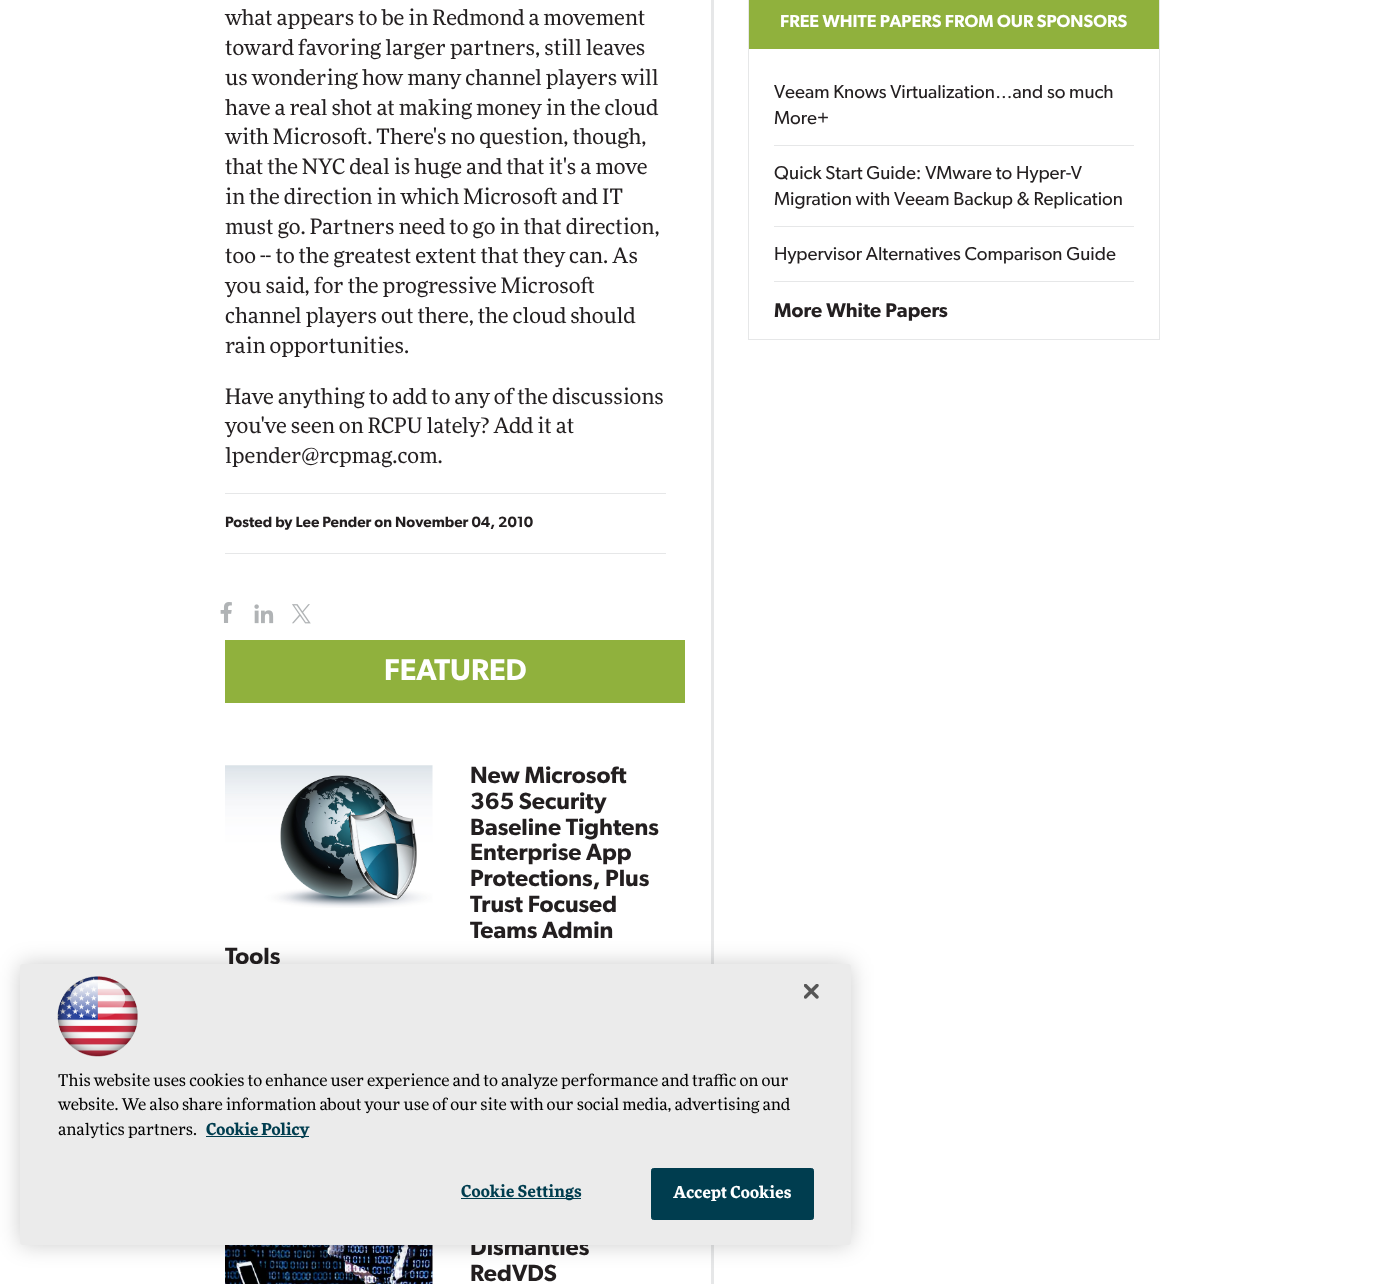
async function draw(canvas) {
	canvas.width = 1384;
	canvas.height = 1284;
	const c = canvas.getContext('2d');
	c.miterLimit = 4;
	c.fontKerning = 'normal';
	async function loadImage(src) {
		const img = new Image();
		img.src = src;
		await img.decode();
		return img;
	}

	c.fillStyle = '#fff';
	c.fillRect(0, 0, 1384, 1284);
	c.font = '21.25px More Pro';
	c.fillStyle = '#231f20';
	for (const [text, x, y] of [
		['what appears to be in Redmond a movement', 225, 25],
		['toward favoring larger partners, still leaves', 225, 55],
		['us wondering how many channel players will', 225, 85],
		['have a real shot at making money in the cloud', 225, 115],
		['with Microsoft. There\'s no question, though,', 225, 144],
		['that the NYC deal is huge and that it\'s a move', 225, 174],
		['in the direction in which Microsoft and IT', 225, 204],
		['must go. Partners need to go in that direction,', 225, 234],
		['too -- to the greatest extent that they can. As', 225, 263],
		['you said, for the progressive Microsoft', 225, 293],
		['channel players out there, the cloud should', 225, 323],
		['rain opportunities.', 225, 353],
		['Have anything to add to any of the discussions', 225, 404],
		['you\'ve seen on RCPU lately? Add it at', 225, 433],
		['lpender@rcpmag.com.', 225, 463],
	]) {
		c.fillText(text, x, y);
	}
	c.fillStyle = '#e6e7e8';
	c.fillRect(225, 493, 441, 1);
	c.fillRect(225, 553, 441, 1);
	c.font = '600 15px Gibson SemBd';
	c.fillStyle = '#231f20';
	c.fillText('Posted by Lee Pender on November 04, 2010', 225, 527);
	c.drawImage(await loadImage('img1.png'), 220, 602, 12, 21);
	c.drawImage(await loadImage('img2.png'), 254, 604, 20, 20);
	c.drawImage(await loadImage('img3.png'), 292, 604, 19, 20);
	c.fillStyle = '#e6e7e8';
	c.fillRect(711, 0, 3, 1284);
	c.fillStyle = '#90b13d';
	c.fillRect(225, 640, 460, 63);
	c.font = '600 30px Gibson SemBd';
	c.fillStyle = '#fff';
	c.fillText('FEATURED', 384, 680);
	c.drawImage(await loadImage('img4.png'), 225, 765, 208, 143);
	c.font = '600 23.5px Gibson SemBd';
	c.fillStyle = '#231f20';
	for (const [text, x, y] of [
		['New Microsoft', 470, 783],
		['365 Security', 470, 809],
		['Baseline Tightens', 470, 835],
		['Enterprise App', 470, 860],
		['Protections, Plus', 470, 886],
		['Trust Focused', 470, 912],
		['Teams Admin', 470, 938],
		['Tools', 225, 964],
	]) {
		c.fillText(text, x, y);
	}
	c.drawImage(await loadImage('img5.png'), 225, 1245, 208, 39);
	c.fillText('Dismantles', 470, 1255);
	c.fillText('RedVDS', 470, 1281);
	c.strokeStyle = '#e6e7e8';
	c.strokeRect(748.5, -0.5, 411, 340);
	c.fillStyle = '#90b13d';
	c.fillRect(749, 0, 410, 49);
	c.font = '600 17.5px Gibson SemBd';
	c.fillStyle = '#fff';
	c.fillText('FREE WHITE PAPERS FROM OUR SPONSORS', 780, 27);
	c.fillStyle = '#e6e7e8';
	c.fillRect(774, 145, 360, 1);
	c.font = '18.75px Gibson';
	c.fillStyle = '#231f20';
	c.fillText('Veeam Knows Virtualization…and so much', 774, 98);
	c.fillText('More+', 774, 124);
	c.fillStyle = '#e6e7e8';
	c.fillRect(774, 226, 360, 1);
	c.fillStyle = '#231f20';
	c.fillText('Quick Start Guide: VMware to Hyper-V', 774, 179);
	c.fillText('Migration with Veeam Backup & Replication', 774, 205);
	c.fillStyle = '#e6e7e8';
	c.fillRect(774, 281, 360, 1);
	c.fillStyle = '#231f20';
	c.fillText('Hypervisor Alternatives Comparison Guide', 774, 260);
	c.font = '600 20px Gibson SemBd';
	c.fillText('More White Papers', 774, 317);
	c.fillStyle = '#00000033';
	c.filter = 'blur(11px)';
	c.beginPath();
	c.roundRect(20, 964, 831, 281, 3);
	c.fill();
	c.filter = 'none';
	c.fillStyle = '#ebebeb';
	c.beginPath();
	c.roundRect(20, 964, 831, 281, 3);
	c.fill();
	c.drawImage(await loadImage('img6.png'), 804, 984, 15, 15);
	c.drawImage(await loadImage('img7.png'), 57, 976, 81, 81);
	c.font = '16.25px More Pro';
	c.fillStyle = '#000';
	for (const [text, x, y] of [
		['This website uses cookies to enhance user experience and to analyze performance and traffic on our', 58, 1086],
		['website. We also share information about your use of our site with our social media, advertising and', 58, 1110],
		['analytics partners.', 58, 1135],
	]) {
		c.fillText(text, x, y);
	}
	c.fillStyle = '#003d4f';
	c.fillRect(206, 1136, 103, 1);
	c.font = 'bold 16.25px More Pro';
	c.fillText('Cookie Policy', 206, 1135);
	c.fillRect(461, 1198, 120, 1);
	c.letterSpacing = '0.2px';
	c.fillText('Cookie Settings', 461, 1197);
	c.beginPath();
	c.roundRect(651.5, 1168.5, 162, 51, 2);
	c.fill();
	c.strokeStyle = '#003d4f';
	c.stroke();
	c.fillStyle = '#fff';
	c.fillText('Accept Cookies', 673, 1198);
}

draw(document.querySelector('canvas'));
